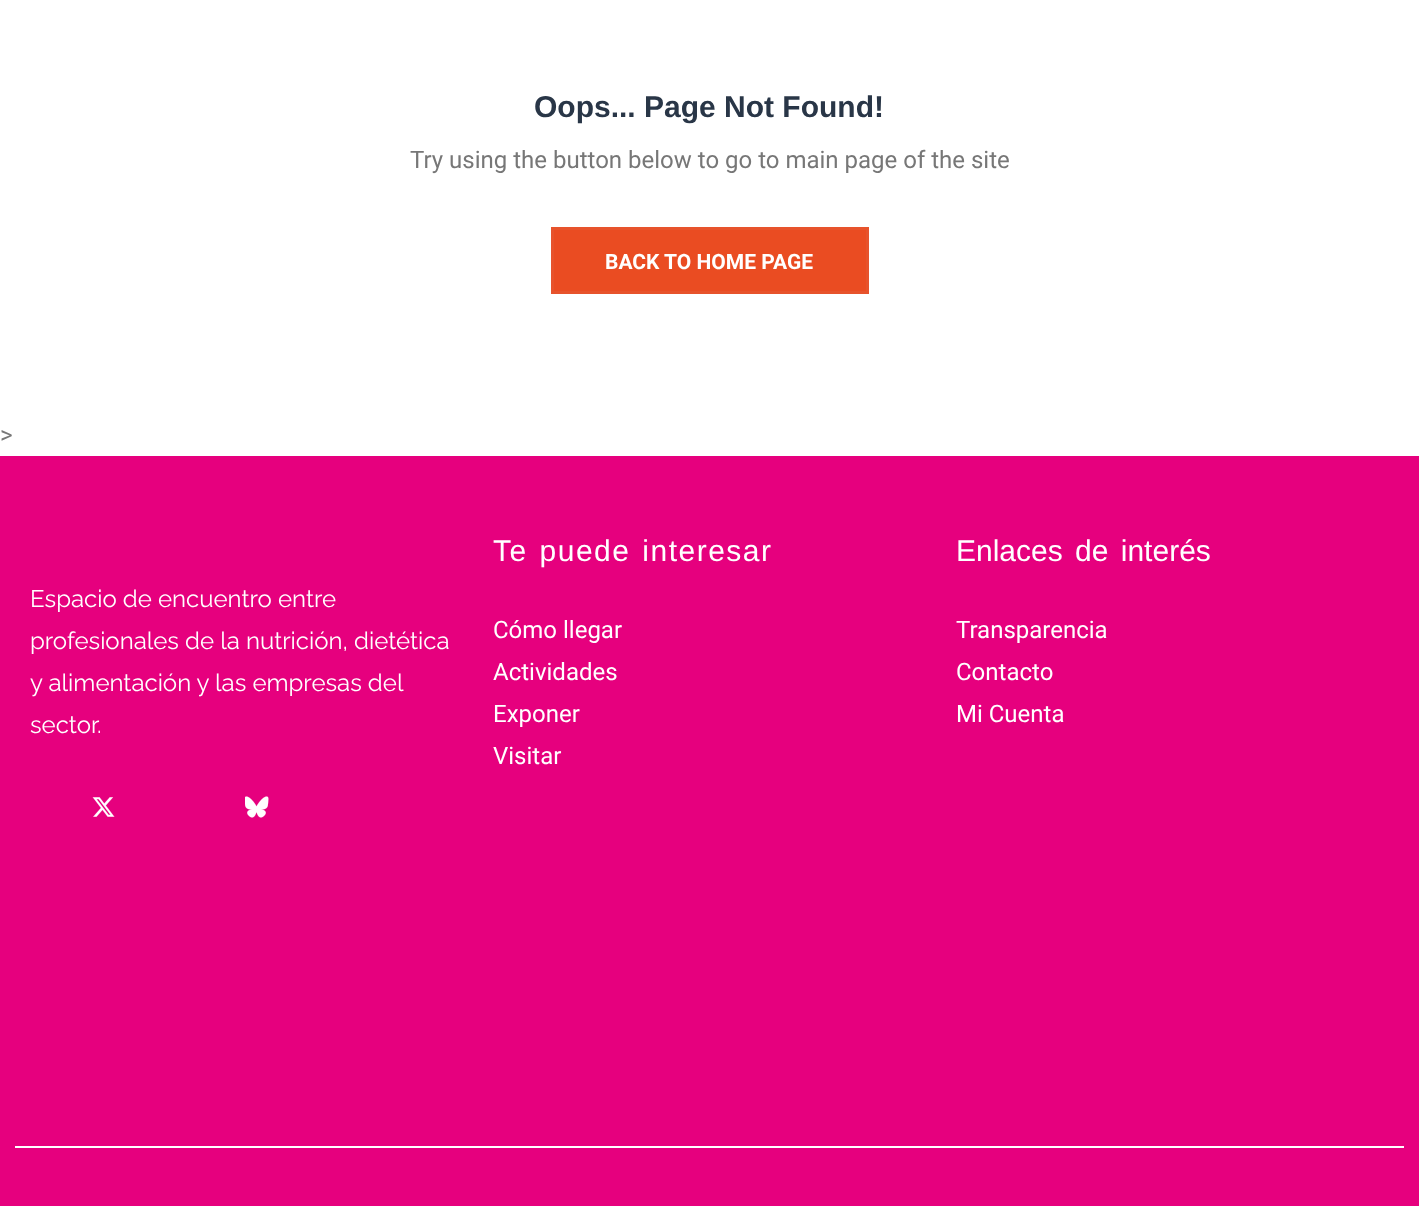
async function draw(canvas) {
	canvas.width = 1419;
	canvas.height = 1206;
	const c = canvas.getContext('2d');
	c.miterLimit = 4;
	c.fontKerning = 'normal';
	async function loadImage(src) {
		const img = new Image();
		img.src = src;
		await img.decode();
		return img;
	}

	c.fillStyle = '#fff';
	c.fillRect(0, 0, 1419, 1206);
	c.font = 'bold 30px Liberation Sans';
	c.fillStyle = '#293647';
	c.fillText('Oops... Page Not Found!', 534, 117);
	c.font = '24px Roboto';
	c.fillStyle = '#777';
	c.fillText('Try using the button below to go to main page of the site', 410, 168);
	c.fillStyle = '#ea4c22';
	c.beginPath();
	c.rect(552.5, 228.5, 315, 64);
	c.fill();
	c.strokeStyle = '#e7532c';
	c.lineWidth = 3;
	c.stroke();
	c.font = 'bold 21px Roboto';
	c.fillStyle = '#fff';
	c.fillText('BACK TO HOME PAGE', 605, 269);
	c.font = '24px Roboto';
	c.fillStyle = '#777';
	c.fillText('>', 0, 443);
	c.fillStyle = '#e6007e';
	c.fillRect(0, 456, 1419, 750);
	c.font = '24px Raleway';
	c.fillStyle = '#fff';
	for (const [text, x, y] of [
		['Espacio de encuentro entre', 30, 607],
		['profesionales de la nutrición, dietética', 30, 649],
		['y alimentación y las empresas del', 30, 691],
		['sector.', 30, 733],
	]) {
		c.fillText(text, x, y);
	}
	c.drawImage(await loadImage('img1.png'), 92, 797, 23, 20);
	c.drawImage(await loadImage('img2.png'), 245, 796, 24, 22);
	c.letterSpacing = '1.5px';
	c.wordSpacing = '2px';
	c.font = '30px Liberation Sans';
	c.fillText('Te puede interesar', 493, 561);
	c.letterSpacing = '0px';
	c.wordSpacing = '0px';
	c.font = '24px Roboto';
	for (const [text, x, y] of [
		['Cómo llegar', 493, 638],
		['Actividades', 493, 680],
		['Exponer', 493, 722],
		['Visitar', 493, 764],
	]) {
		c.fillText(text, x, y);
	}
	c.wordSpacing = '4px';
	c.font = '30px Liberation Sans';
	c.fillText('Enlaces de interés', 956, 561);
	c.wordSpacing = '0px';
	c.font = '24px Roboto';
	for (const [text, x, y] of [
		['Transparencia', 956, 638],
		['Contacto', 956, 680],
		['Mi Cuenta', 956, 722],
	]) {
		c.fillText(text, x, y);
	}
	c.fillRect(15, 1146, 1389, 2);
}

draw(document.querySelector('canvas'));
